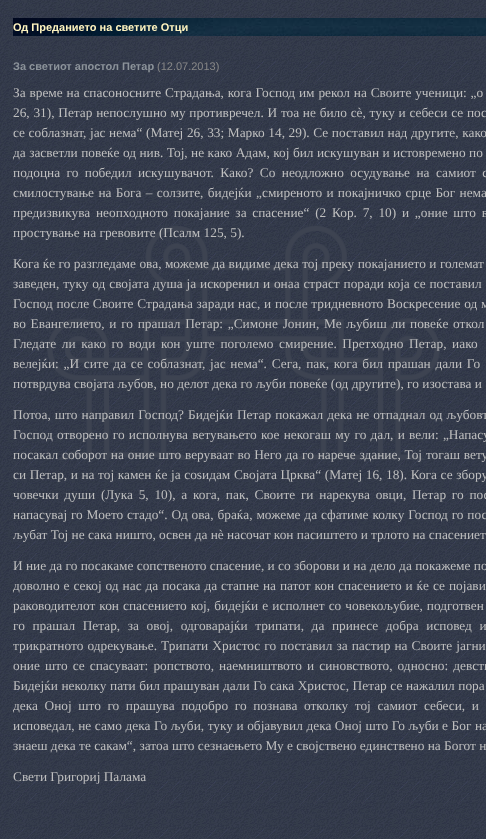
async function draw(canvas) {
	canvas.width = 486;
	canvas.height = 839;
	const c = canvas.getContext('2d');
	c.miterLimit = 4;
	c.fontKerning = 'normal';
	async function loadImage(src) {
		const img = new Image();
		img.src = src;
		await img.decode();
		return img;
	}

	c.fillStyle = '#fff';
	c.fillRect(0, 0, 486, 839);
	c.drawImage(await loadImage('img1.png'), 0, 0, 486, 839);
	c.drawImage(await loadImage('img2.png'), 13, 18, 473, 18);
	c.font = 'bold 11px Liberation Sans';
	c.fillStyle = '#fff4bf';
	c.fillText('Од Преданието на светите Отци', 13, 31);
	c.drawImage(await loadImage('img3.png'), 47, 225, 393, 235);
	c.fillStyle = '#8c939a';
	c.fillText('За светиот апостол Петар', 13, 70);
	c.font = '11px Liberation Sans';
	c.fillStyle = '#888';
	c.fillText('(12.07.2013)', 157, 70);
	c.wordSpacing = '0.5px';
	c.font = '13.35px Liberation Serif';
	c.fillStyle = '#bfbfbf';
	c.fillText('За време на спасоносните Страдања, кога Господ им рекол на Своите ученици: „о', 13, 97);
	c.wordSpacing = '0.4px';
	c.fillText('26, 31), Петар непослушно му противречел. И тоа не било сѐ, туку и себеси се пос', 13, 117);
	c.wordSpacing = '0.25px';
	c.fillText('се соблазнат, јас нема“ (Матеј 26, 33; Марко 14, 29). Се поставил над другите, како', 13, 137);
	c.wordSpacing = '0.1px';
	c.fillText('да засветли повеќе од нив. Тој, не како Адам, кој бил искушуван и истовремено по', 13, 157);
	c.wordSpacing = '3.1px';
	c.fillText('подоцна го победил искушувачот. Како? Со неодложно осудување на самиот с', 13, 177);
	c.wordSpacing = '1px';
	c.fillText('смилостување на Бога – солзите, бидејќи „смиреното и покајничко срце Бог нема', 13, 197);
	c.wordSpacing = '2.4px';
	c.fillText('предизвикува неопходното покајание за спасение“ (2 Кор. 7, 10) и „оние што в', 13, 217);
	c.wordSpacing = '0px';
	c.fillText('простување на гревовите (Псалм 125, 5).', 13, 237);
	c.wordSpacing = '0.1px';
	c.fillText('Кога ќе го разгледаме ова, можеме да видиме дека тој преку покајанието и големат', 13, 268);
	c.wordSpacing = '0.5px';
	c.fillText('заведен, туку од својата душа ја искоренил и онаа страст поради која се поставил', 13, 288);
	c.wordSpacing = '0.4px';
	c.fillText('Господ после Своите Страдања заради нас, и после тридневното Воскресение од м', 13, 308);
	c.wordSpacing = '1.4px';
	c.fillText('во Евангелието, и го прашал Петар: „Симоне Јонин, Ме љубиш ли повеќе откол', 13, 328);
	c.wordSpacing = '2.25px';
	c.fillText('Гледате ли како го води кон уште поголемо смирение. Претходно Петар, иако', 13, 348);
	c.wordSpacing = '1.4px';
	c.fillText('велејќи: „И сите да се соблазнат, јас нема“. Сега, пак, кога бил прашан дали Го', 13, 368);
	c.wordSpacing = '0px';
	c.fillText('потврдува својата љубов, но делот дека го љуби повеќе (од другите), го изостава и', 13, 388);
	c.wordSpacing = '0.75px';
	c.fillText('Потоа, што направил Господ? Бидејќи Петар покажал дека не отпаднал од љубовт', 13, 419);
	c.wordSpacing = '0.9px';
	c.fillText('Господ отворено го исполнува ветувањето кое некогаш му го дал, и вели: „Напасу', 13, 439);
	c.wordSpacing = '0.5px';
	c.fillText('посакал соборот на оние што веруваат во Него да го нарече здание, Тој тогаш вету', 13, 459);
	c.wordSpacing = '0.25px';
	c.fillText('си Петар, и на тој камен ќе ја соѕидам Својата Црква“ (Матеј 16, 18). Кога се збору', 13, 479);
	c.wordSpacing = '2.4px';
	c.fillText('човечки души (Лука 5, 10), а кога, пак, Своите ги нарекува овци, Петар го пос', 13, 499);
	c.wordSpacing = '0.5px';
	c.fillText('напасувај го Моето стадо“. Од ова, браќа, можеме да сфатиме колку Господ го пос', 13, 519);
	c.wordSpacing = '0px';
	c.fillText('љубат Тој не сака ништо, освен да нѐ насочат кон пасиштето и трлото на спасениет', 13, 539);
	c.fillText('И ние да го посакаме сопственото спасение, и со зборови и на дело да покажеме по', 13, 570);
	c.wordSpacing = '0.6px';
	c.fillText('доволно е секој од нас да посака да стапне на патот кон спасението и ќе се појави', 13, 590);
	c.wordSpacing = '0.75px';
	c.fillText('раководителот кон спасението кој, бидејќи е исполнет со човекољубие, подготвен', 13, 610);
	c.wordSpacing = '4.25px';
	c.fillText('го прашал Петар, за овој, одговарајќи трипати, да принесе добра исповед и', 13, 630);
	c.wordSpacing = '0.75px';
	c.fillText('трикратното одрекување. Трипати Христос го поставил за пастир на Своите јагни', 13, 650);
	c.wordSpacing = '1.75px';
	c.fillText('оние што се спасуваат: ропството, наемништвото и синовството, односно: девств', 13, 670);
	c.wordSpacing = '0.25px';
	c.fillText('Бидејќи неколку пати бил прашуван дали Го сака Христос, Петар се нажалил пора', 13, 690);
	c.wordSpacing = '3.25px';
	c.fillText('дека Оној што го прашува подобро го познава отколку тој самиот себеси, и', 13, 710);
	c.wordSpacing = '0.2px';
	c.fillText('исповедал, не само дека Го љуби, туку и објавувил дека Оној што Го љуби е Бог на', 13, 730);
	c.wordSpacing = '0px';
	c.fillText('знаеш дека те сакам“, затоа што сезнаењето Му е својствено единствено на Богот н', 13, 750);
	c.fillText('Свети Григориј Палама', 13, 781);
}

draw(document.querySelector('canvas'));
